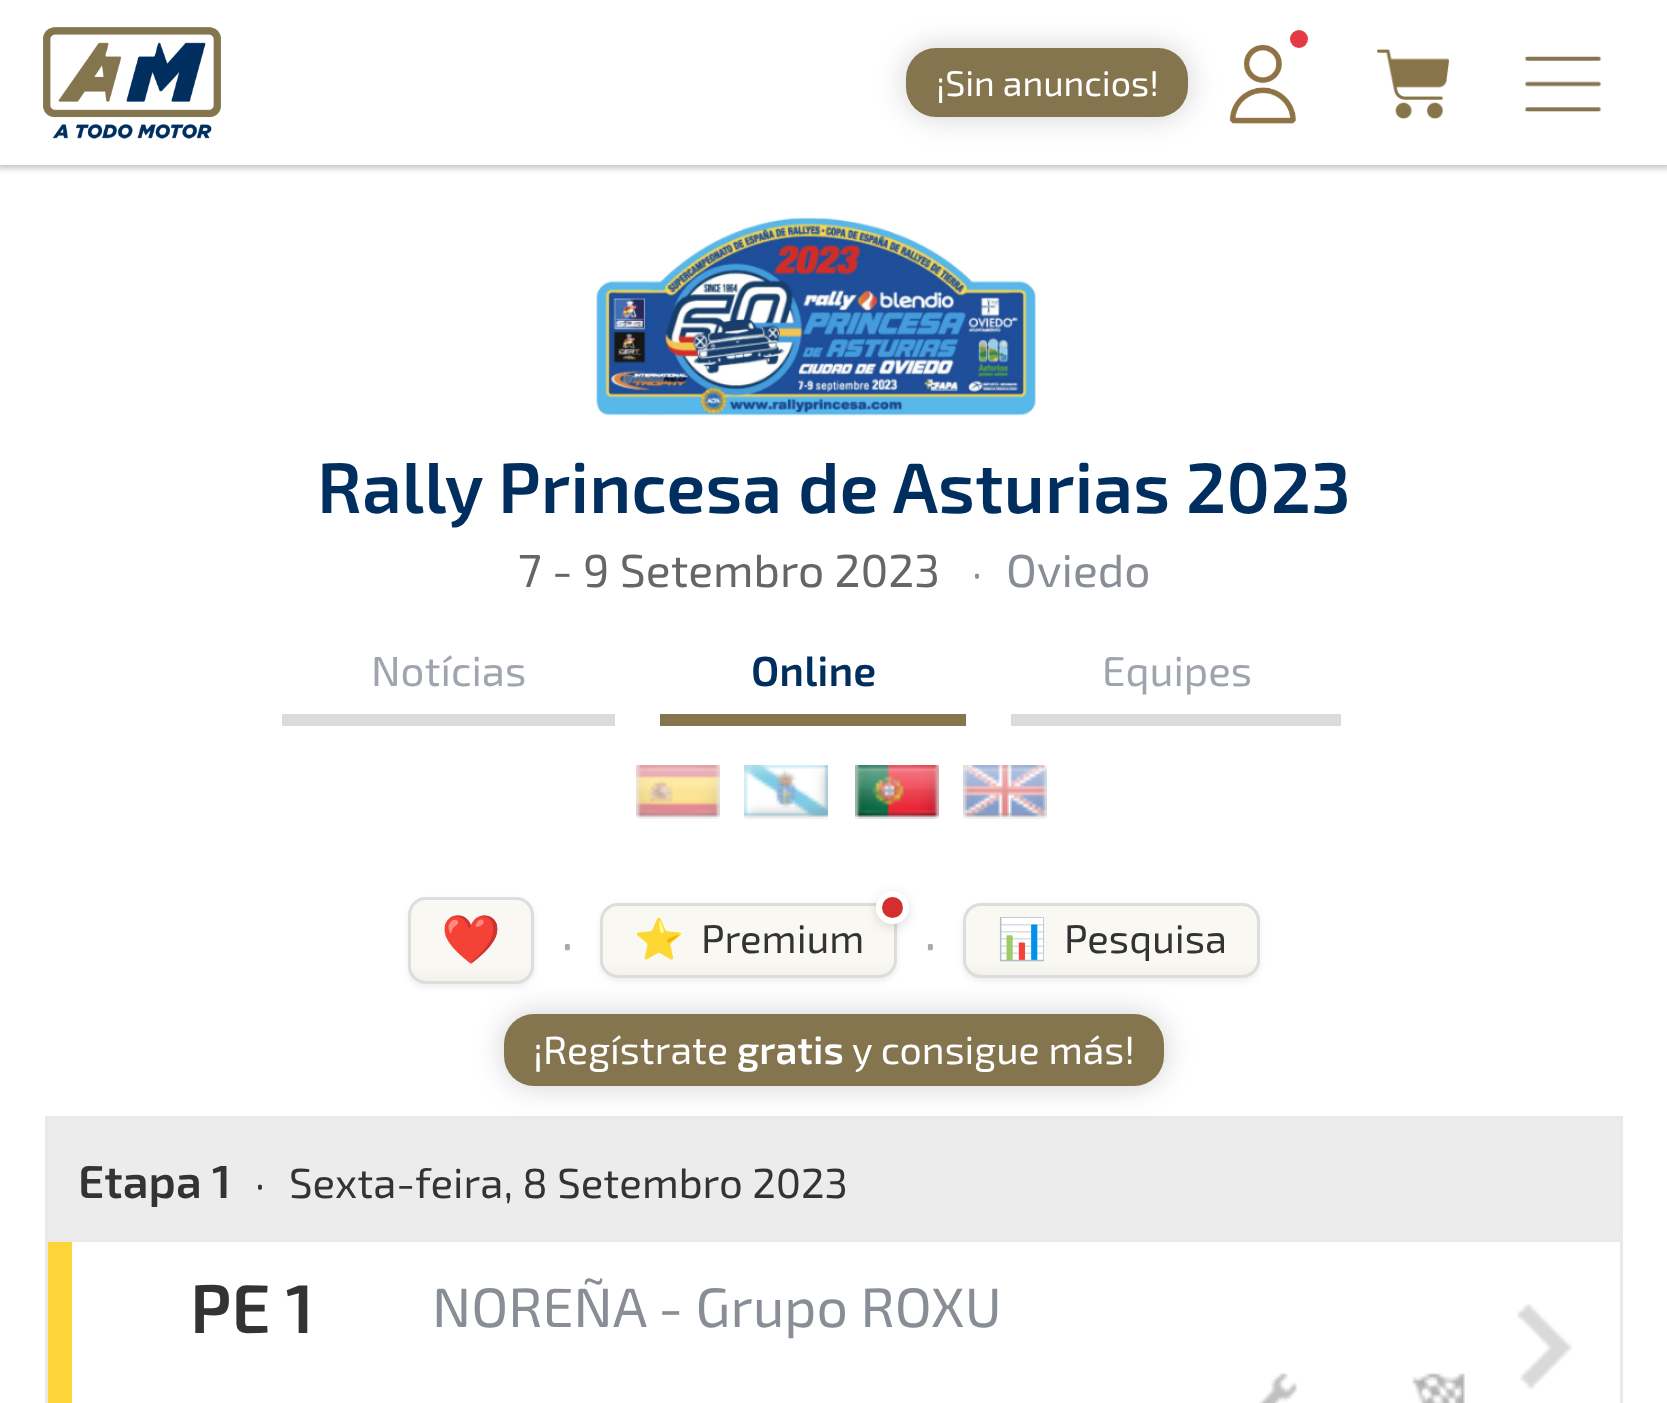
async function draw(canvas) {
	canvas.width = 1667;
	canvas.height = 1403;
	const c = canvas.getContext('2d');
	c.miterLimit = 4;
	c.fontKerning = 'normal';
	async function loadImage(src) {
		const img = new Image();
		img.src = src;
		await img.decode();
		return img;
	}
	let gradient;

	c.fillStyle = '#fff';
	c.fillRect(0, 0, 1667, 1403);
	c.save();
	c.beginPath();
	c.rect(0, 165, 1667, 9);
	c.clip();
	c.fillStyle = '#c0c0c0';
	c.filter = 'blur(3px)';
	c.beginPath();
	c.rect(-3, -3, 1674, 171);
	c.fill();
	c.filter = 'none';
	c.restore();
	c.drawImage(await loadImage('img1.png'), 43, 27, 178, 112);
	c.fillStyle = '#0000002e';
	c.filter = 'blur(15px)';
	c.beginPath();
	c.roundRect(906, 48, 282, 69, 30);
	c.fill();
	c.filter = 'none';
	c.fillStyle = '#84754e';
	c.beginPath();
	c.roundRect(906, 48, 282, 69, 30);
	c.fill();
	c.font = '35.75px "Exo 2"';
	c.fillStyle = '#fff';
	c.fillText('¡Sin anuncios!', 936, 96);
	c.drawImage(await loadImage('img2.png'), 1229, 44, 67, 80);
	c.fillStyle = '#e63946';
	c.beginPath();
	c.arc(1299, 39, 9, 0, 2 * Math.PI);
	c.fill();
	c.drawImage(await loadImage('img3.png'), 1377, 49, 72, 70);
	c.drawImage(await loadImage('img4.png'), 1524, 56, 78, 56);
	c.drawImage(await loadImage('img5.png'), 596, 217, 440, 199);
	c.font = '600 71.4px "Exo 2"';
	c.fillStyle = '#002f5f';
	c.fillText('Rally Princesa de Asturias 2023', 317, 513);
	c.font = '46.25px "Exo 2"';
	c.fillStyle = '#666';
	c.fillText('7 - 9 Setembro 2023', 518, 587);
	c.font = '42px "Exo 2"';
	c.fillStyle = '#898d96';
	c.fillText('·', 972, 587);
	c.font = '46.25px "Exo 2"';
	c.fillText('Oviedo', 1006, 587);
	c.fillStyle = '#dbdbdb';
	c.fillRect(282, 714, 333, 12);
	c.font = '42px "Exo 2"';
	c.fillStyle = '#9fa4ae';
	c.fillText('Notícias', 371, 686);
	c.fillStyle = '#84754e';
	c.fillRect(660, 714, 306, 12);
	c.font = '600 42px "Exo 2"';
	c.fillStyle = '#002f5f';
	c.fillText('Online', 751, 686);
	c.fillStyle = '#dbdbdb';
	c.fillRect(1011, 714, 330, 12);
	c.font = '42px "Exo 2"';
	c.fillStyle = '#9fa4ae';
	c.fillText('Equipes', 1102, 686);
	c.drawImage(await loadImage('img6.png'), 636, 765, 84, 54);
	c.drawImage(await loadImage('img7.png'), 744, 765, 84, 54);
	c.drawImage(await loadImage('img8.png'), 855, 765, 84, 54);
	c.drawImage(await loadImage('img9.png'), 963, 765, 84, 54);
	c.fillStyle = '#00000012';
	c.filter = 'blur(3px)';
	c.beginPath();
	c.roundRect(408, 900, 126, 87, 18);
	c.fill();
	c.filter = 'none';
	c.save();
	c.beginPath();
	c.roundRect(408, 897, 126, 87, 18);
	c.clip();
	gradient = c.createLinearGradient(471, 900, 471, 981);
	gradient.addColorStop(0.8, '#faf8f3');
	gradient.addColorStop(1, '#f3f1eb');
	c.fillStyle = gradient;
	c.fillRect(408, 900, 126, 81);
	c.restore();
	c.beginPath();
	c.roundRect(409.5, 898.5, 123, 84, 16.5);
	c.strokeStyle = '#ddd';
	c.lineWidth = 3;
	c.stroke();
	c.font = '48px Noto Color Emoji';
	c.fillStyle = '#333';
	c.fillText('❤️', 441, 956);
	c.font = '54px "Exo 2"';
	c.fillStyle = '#aaa';
	c.fillText('·', 561, 961);
	c.fillStyle = '#00000012';
	c.filter = 'blur(3px)';
	c.beginPath();
	c.roundRect(600, 906, 297, 75, 18);
	c.fill();
	c.filter = 'none';
	c.save();
	c.beginPath();
	c.roundRect(600, 903, 297, 75, 18);
	c.clip();
	gradient = c.createLinearGradient(749, 906, 749, 975);
	gradient.addColorStop(0.8, '#faf8f3');
	gradient.addColorStop(1, '#f3f1eb');
	c.fillStyle = gradient;
	c.fillRect(600, 906, 297, 69);
	c.restore();
	c.beginPath();
	c.roundRect(601.5, 904.5, 294, 72, 16.5);
	c.stroke();
	c.font = '40px Noto Color Emoji';
	c.fillStyle = '#333';
	c.fillText('⭐', 634, 953);
	c.font = '40px "Exo 2"';
	c.fillText('Premium', 701, 953);
	c.fillStyle = '#00000021';
	c.filter = 'blur(6px)';
	c.beginPath();
	c.roundRect(876, 894, 33, 33, 16.5);
	c.fill();
	c.filter = 'none';
	c.fillStyle = '#d32f2f';
	c.beginPath();
	c.arc(892.5, 907.5, 13.5, 0, 2 * Math.PI);
	c.fill();
	c.strokeStyle = '#fff';
	c.lineWidth = 6;
	c.stroke();
	c.font = '54px "Exo 2"';
	c.fillStyle = '#aaa';
	c.fillText('·', 924, 961);
	c.fillStyle = '#00000012';
	c.filter = 'blur(3px)';
	c.beginPath();
	c.roundRect(963, 906, 297, 75, 18);
	c.fill();
	c.filter = 'none';
	c.save();
	c.beginPath();
	c.roundRect(963, 903, 297, 75, 18);
	c.clip();
	gradient = c.createLinearGradient(1112, 906, 1112, 975);
	gradient.addColorStop(0.8, '#faf8f3');
	gradient.addColorStop(1, '#f3f1eb');
	c.fillStyle = gradient;
	c.fillRect(963, 906, 297, 69);
	c.restore();
	c.beginPath();
	c.roundRect(964.5, 904.5, 294, 72, 16.5);
	c.strokeStyle = '#ddd';
	c.lineWidth = 3;
	c.stroke();
	c.font = '40px Noto Color Emoji';
	c.fillStyle = '#333';
	c.fillText('📊', 997, 953);
	c.font = '40px "Exo 2"';
	c.fillText('Pesquisa', 1064, 953);
	c.fillStyle = '#0000002e';
	c.filter = 'blur(15px)';
	c.beginPath();
	c.roundRect(504, 1014, 660, 72, 30);
	c.fill();
	c.filter = 'none';
	c.fillStyle = '#84754e';
	c.beginPath();
	c.roundRect(504, 1014, 660, 72, 30);
	c.fill();
	c.font = '39.25px "Exo 2"';
	c.fillStyle = '#fff';
	c.fillText('¡Regístrate', 533, 1064);
	c.font = '600 39.25px "Exo 2"';
	c.fillText('gratis', 737, 1064);
	c.font = '39.25px "Exo 2"';
	c.fillText('y consigue más!', 852, 1064);
	for (const [x, y, w, h, color] of [
		[48, 1119, 1572, 120, '#ececec'],
		[45, 1116, 1578, 3, '#e9e9e9'],
		[1620, 1116, 3, 123, '#e9e9e9'],
		[45, 1116, 3, 123, '#e9e9e9'],
	]) {
		c.fillStyle = color;
		c.fillRect(x, y, w, h);
	}
	c.font = '600 46.25px "Exo 2"';
	c.fillStyle = '#333';
	c.fillText('Etapa 1', 78, 1198);
	c.font = '42px "Exo 2"';
	c.fillText('·', 255, 1198);
	c.fillText('Sexta-feira, 8 Setembro 2023', 289, 1198);
	for (const [x, y, w, h, color] of [
		[45, 1239, 1578, 3, '#e9e9e9'],
		[1620, 1239, 3, 164, '#e9e9e9'],
		[45, 1239, 3, 164, '#e9e9e9'],
	]) {
		c.fillStyle = color;
		c.fillRect(x, y, w, h);
	}
	c.drawImage(await loadImage('img10.png'), 1517, 1304, 56, 86);
	c.fillStyle = '#fdd539';
	c.fillRect(48, 1242, 24, 161);
	c.font = '600 69px "Exo 2"';
	c.fillStyle = '#333';
	c.fillText('PE 1', 190, 1333);
	c.font = '55.5px "Exo 2"';
	c.fillStyle = '#898d96';
	c.fillText('NOREÑA - Grupo ROXU', 432, 1327);
	c.drawImage(await loadImage('img11.png'), 1259, 1373, 38, 30);
	c.drawImage(await loadImage('img12.png'), 1412, 1373, 53, 30);
}

draw(document.querySelector('canvas'));
